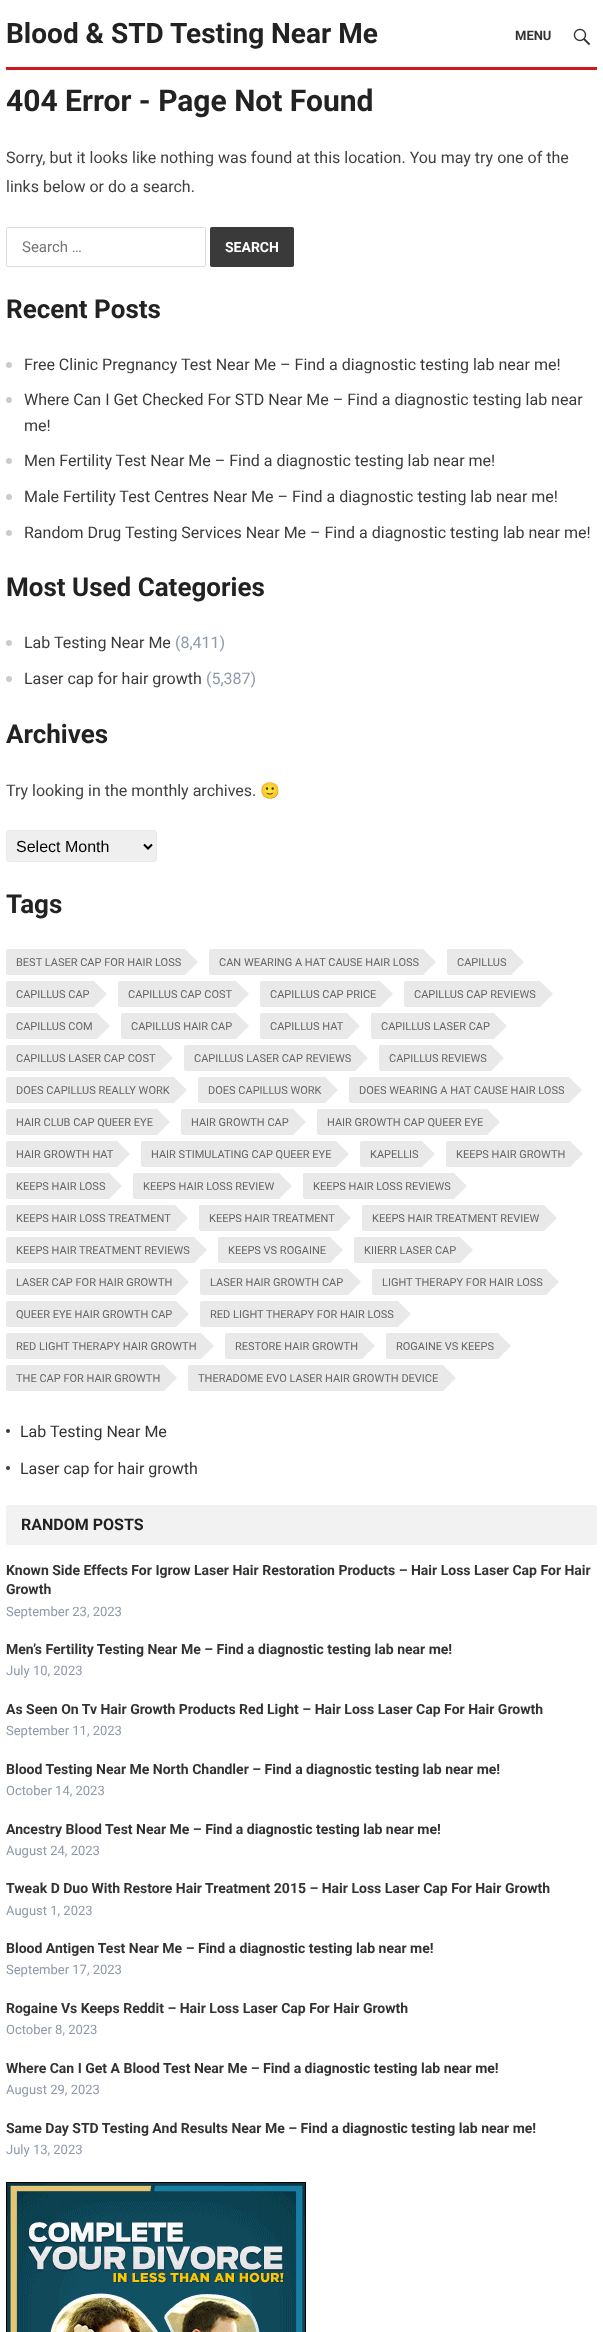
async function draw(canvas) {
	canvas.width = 603;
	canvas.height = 2332;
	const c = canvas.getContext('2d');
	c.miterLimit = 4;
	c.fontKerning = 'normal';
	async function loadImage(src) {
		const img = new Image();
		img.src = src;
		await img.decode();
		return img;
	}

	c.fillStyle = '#fff';
	c.fillRect(0, 0, 603, 2332);
	c.fillStyle = '#ce181e';
	c.fillRect(6, 67, 591, 3);
	c.font = 'bold 28px Roboto';
	c.fillStyle = '#222';
	c.fillText('Blood & STD Testing Near Me', 6, 43);
	c.font = 'bold 13px Roboto';
	c.fillStyle = '#333';
	c.fillText('MENU', 515, 40);
	c.drawImage(await loadImage('img1.png'), 573, 28, 18, 18);
	c.font = 'bold 30px Roboto';
	c.fillStyle = '#222';
	c.fillText('404 Error - Page Not Found', 6, 111);
	c.font = '16px Roboto';
	c.fillStyle = '#414141';
	c.fillText('Sorry, but it looks like nothing was found at this location. You may try one of the', 6, 163);
	c.fillText('links below or do a search.', 6, 192);
	c.beginPath();
	c.roundRect(6.5, 227.5, 199, 39, 1.5);
	c.strokeStyle = '#ddd';
	c.stroke();
	c.font = '15px Roboto';
	c.fillStyle = '#757575';
	c.fillText('Search …', 22, 252);
	c.fillStyle = '#3a3a3a';
	c.beginPath();
	c.roundRect(210, 227, 84, 40, 2);
	c.fill();
	c.font = 'bold 14px Roboto';
	c.fillStyle = '#fff';
	c.fillText('SEARCH', 225, 252);
	c.font = 'bold 26px Roboto';
	c.fillStyle = '#222';
	c.fillText('Recent Posts', 6, 318);
	c.fillStyle = '#ccc';
	c.beginPath();
	c.arc(9, 365, 3, 0, 2 * Math.PI);
	c.fill();
	c.font = '16px Roboto';
	c.fillStyle = '#3a3a3a';
	c.fillText('Free Clinic Pregnancy Test Near Me – Find a diagnostic testing lab near me!', 24, 370);
	c.fillStyle = '#ccc';
	c.beginPath();
	c.arc(9, 400, 3, 0, 2 * Math.PI);
	c.fill();
	c.fillStyle = '#3a3a3a';
	c.fillText('Where Can I Get Checked For STD Near Me – Find a diagnostic testing lab near', 24, 405);
	c.fillText('me!', 24, 431);
	c.fillStyle = '#ccc';
	c.beginPath();
	c.arc(9, 461, 3, 0, 2 * Math.PI);
	c.fill();
	c.fillStyle = '#3a3a3a';
	c.fillText('Men Fertility Test Near Me – Find a diagnostic testing lab near me!', 24, 466);
	c.fillStyle = '#ccc';
	c.beginPath();
	c.arc(9, 497, 3, 0, 2 * Math.PI);
	c.fill();
	c.fillStyle = '#3a3a3a';
	c.fillText('Male Fertility Test Centres Near Me – Find a diagnostic testing lab near me!', 24, 502);
	c.fillStyle = '#ccc';
	c.beginPath();
	c.arc(9, 533, 3, 0, 2 * Math.PI);
	c.fill();
	c.fillStyle = '#3a3a3a';
	c.fillText('Random Drug Testing Services Near Me – Find a diagnostic testing lab near me!', 24, 538);
	c.font = 'bold 26px Roboto';
	c.fillStyle = '#222';
	c.fillText('Most Used Categories', 6, 596);
	c.fillStyle = '#ccc';
	c.beginPath();
	c.arc(9, 643, 3, 0, 2 * Math.PI);
	c.fill();
	c.font = '16px Roboto';
	c.fillStyle = '#3a3a3a';
	c.fillText('Lab Testing Near Me', 24, 648);
	c.fillStyle = '#8e99a9';
	c.fillText('(8,411)', 175, 648);
	c.fillStyle = '#ccc';
	c.beginPath();
	c.arc(9, 679, 3, 0, 2 * Math.PI);
	c.fill();
	c.fillStyle = '#3a3a3a';
	c.fillText('Laser cap for hair growth', 24, 684);
	c.fillStyle = '#8e99a9';
	c.fillText('(5,387)', 206, 684);
	c.font = 'bold 26px Roboto';
	c.fillStyle = '#222';
	c.fillText('Archives', 6, 743);
	c.font = '16px Roboto';
	c.fillStyle = '#414141';
	c.fillText('Try looking in the monthly archives.', 6, 796);
	c.font = '16px Noto Color Emoji';
	c.fillText('🙂', 260, 796);
	c.fillStyle = '#efefef';
	c.beginPath();
	c.roundRect(6.5, 830.5, 150, 31, 2.5);
	c.fill();
	c.strokeStyle = '#e9e9e9';
	c.stroke();
	c.beginPath();
	c.moveTo(144, 844.5);
	c.lineTo(148, 848.5);
	c.lineTo(152, 844.5);
	c.strokeStyle = '#000';
	c.lineWidth = 2;
	c.stroke();
	c.font = '16px Liberation Sans';
	c.fillStyle = '#000';
	c.fillText('Select Month', 16, 852);
	c.font = 'bold 26px Roboto';
	c.fillStyle = '#222';
	c.fillText('Tags', 6, 913);
	c.fillStyle = '#e9e9e9';
	c.beginPath();
	c.roundRect(6, 949, 179, 26, [2, 0, 0, 2]);
	c.fill();
	c.font = '11px Roboto';
	c.fillStyle = '#666';
	c.fillText('BEST LASER CAP FOR HAIR LOSS', 16, 966);
	c.fillStyle = '#e9e9e9';
	c.beginPath();
	c.moveTo(185, 975);
	c.lineTo(185, 949);
	c.lineTo(198, 962);
	c.closePath();
	c.fill();
	c.beginPath();
	c.roundRect(209, 949, 214, 26, [2, 0, 0, 2]);
	c.fill();
	c.fillStyle = '#666';
	c.fillText('CAN WEARING A HAT CAUSE HAIR LOSS', 219, 966);
	c.fillStyle = '#e9e9e9';
	c.beginPath();
	c.moveTo(423, 975);
	c.lineTo(423, 949);
	c.lineTo(436, 962);
	c.closePath();
	c.fill();
	c.beginPath();
	c.roundRect(447, 949, 64, 26, [2, 0, 0, 2]);
	c.fill();
	c.fillStyle = '#666';
	c.fillText('CAPILLUS', 457, 966);
	c.fillStyle = '#e9e9e9';
	c.beginPath();
	c.moveTo(511, 975);
	c.lineTo(511, 949);
	c.lineTo(524, 962);
	c.closePath();
	c.fill();
	c.beginPath();
	c.roundRect(6, 981, 88, 26, [2, 0, 0, 2]);
	c.fill();
	c.fillStyle = '#666';
	c.fillText('CAPILLUS CAP', 16, 998);
	c.fillStyle = '#e9e9e9';
	c.beginPath();
	c.moveTo(94, 1007);
	c.lineTo(94, 981);
	c.lineTo(107, 994);
	c.closePath();
	c.fill();
	c.beginPath();
	c.roundRect(118, 981, 118, 26, [2, 0, 0, 2]);
	c.fill();
	c.fillStyle = '#666';
	c.fillText('CAPILLUS CAP COST', 128, 998);
	c.fillStyle = '#e9e9e9';
	c.beginPath();
	c.moveTo(236, 1007);
	c.lineTo(236, 981);
	c.lineTo(249, 994);
	c.closePath();
	c.fill();
	c.beginPath();
	c.roundRect(260, 981, 120, 26, [2, 0, 0, 2]);
	c.fill();
	c.fillStyle = '#666';
	c.fillText('CAPILLUS CAP PRICE', 270, 998);
	c.fillStyle = '#e9e9e9';
	c.beginPath();
	c.moveTo(380, 1007);
	c.lineTo(380, 981);
	c.lineTo(393, 994);
	c.closePath();
	c.fill();
	c.beginPath();
	c.roundRect(404, 981, 136, 26, [2, 0, 0, 2]);
	c.fill();
	c.fillStyle = '#666';
	c.fillText('CAPILLUS CAP REVIEWS', 414, 998);
	c.fillStyle = '#e9e9e9';
	c.beginPath();
	c.moveTo(540, 1007);
	c.lineTo(540, 981);
	c.lineTo(553, 994);
	c.closePath();
	c.fill();
	c.beginPath();
	c.roundRect(6, 1013, 91, 26, [2, 0, 0, 2]);
	c.fill();
	c.fillStyle = '#666';
	c.fillText('CAPILLUS COM', 16, 1030);
	c.fillStyle = '#e9e9e9';
	c.beginPath();
	c.moveTo(97, 1039);
	c.lineTo(97, 1013);
	c.lineTo(110, 1026);
	c.closePath();
	c.fill();
	c.beginPath();
	c.roundRect(121, 1013, 115, 26, [2, 0, 0, 2]);
	c.fill();
	c.fillStyle = '#666';
	c.fillText('CAPILLUS HAIR CAP', 131, 1030);
	c.fillStyle = '#e9e9e9';
	c.beginPath();
	c.moveTo(236, 1039);
	c.lineTo(236, 1013);
	c.lineTo(249, 1026);
	c.closePath();
	c.fill();
	c.beginPath();
	c.roundRect(260, 1013, 87, 26, [2, 0, 0, 2]);
	c.fill();
	c.fillStyle = '#666';
	c.fillText('CAPILLUS HAT', 270, 1030);
	c.fillStyle = '#e9e9e9';
	c.beginPath();
	c.moveTo(347, 1039);
	c.lineTo(347, 1013);
	c.lineTo(360, 1026);
	c.closePath();
	c.fill();
	c.beginPath();
	c.roundRect(371, 1013, 123, 26, [2, 0, 0, 2]);
	c.fill();
	c.fillStyle = '#666';
	c.fillText('CAPILLUS LASER CAP', 381, 1030);
	c.fillStyle = '#e9e9e9';
	c.beginPath();
	c.moveTo(494, 1039);
	c.lineTo(494, 1013);
	c.lineTo(507, 1026);
	c.closePath();
	c.fill();
	c.beginPath();
	c.roundRect(6, 1045, 154, 26, [2, 0, 0, 2]);
	c.fill();
	c.fillStyle = '#666';
	c.fillText('CAPILLUS LASER CAP COST', 16, 1062);
	c.fillStyle = '#e9e9e9';
	c.beginPath();
	c.moveTo(160, 1071);
	c.lineTo(160, 1045);
	c.lineTo(173, 1058);
	c.closePath();
	c.fill();
	c.beginPath();
	c.roundRect(184, 1045, 171, 26, [2, 0, 0, 2]);
	c.fill();
	c.fillStyle = '#666';
	c.fillText('CAPILLUS LASER CAP REVIEWS', 194, 1062);
	c.fillStyle = '#e9e9e9';
	c.beginPath();
	c.moveTo(355, 1071);
	c.lineTo(355, 1045);
	c.lineTo(368, 1058);
	c.closePath();
	c.fill();
	c.beginPath();
	c.roundRect(379, 1045, 112, 26, [2, 0, 0, 2]);
	c.fill();
	c.fillStyle = '#666';
	c.fillText('CAPILLUS REVIEWS', 389, 1062);
	c.fillStyle = '#e9e9e9';
	c.beginPath();
	c.moveTo(491, 1071);
	c.lineTo(491, 1045);
	c.lineTo(504, 1058);
	c.closePath();
	c.fill();
	c.beginPath();
	c.roundRect(6, 1077, 168, 26, [2, 0, 0, 2]);
	c.fill();
	c.fillStyle = '#666';
	c.fillText('DOES CAPILLUS REALLY WORK', 16, 1094);
	c.fillStyle = '#e9e9e9';
	c.beginPath();
	c.moveTo(174, 1103);
	c.lineTo(174, 1077);
	c.lineTo(187, 1090);
	c.closePath();
	c.fill();
	c.beginPath();
	c.roundRect(198, 1077, 127, 26, [2, 0, 0, 2]);
	c.fill();
	c.fillStyle = '#666';
	c.fillText('DOES CAPILLUS WORK', 208, 1094);
	c.fillStyle = '#e9e9e9';
	c.beginPath();
	c.moveTo(325, 1103);
	c.lineTo(325, 1077);
	c.lineTo(338, 1090);
	c.closePath();
	c.fill();
	c.beginPath();
	c.roundRect(349, 1077, 220, 26, [2, 0, 0, 2]);
	c.fill();
	c.fillStyle = '#666';
	c.fillText('DOES WEARING A HAT CAUSE HAIR LOSS', 359, 1094);
	c.fillStyle = '#e9e9e9';
	c.beginPath();
	c.moveTo(569, 1103);
	c.lineTo(569, 1077);
	c.lineTo(582, 1090);
	c.closePath();
	c.fill();
	c.beginPath();
	c.roundRect(6, 1109, 151, 26, [2, 0, 0, 2]);
	c.fill();
	c.fillStyle = '#666';
	c.fillText('HAIR CLUB CAP QUEER EYE', 16, 1126);
	c.fillStyle = '#e9e9e9';
	c.beginPath();
	c.moveTo(157, 1135);
	c.lineTo(157, 1109);
	c.lineTo(170, 1122);
	c.closePath();
	c.fill();
	c.beginPath();
	c.roundRect(181, 1109, 112, 26, [2, 0, 0, 2]);
	c.fill();
	c.fillStyle = '#666';
	c.fillText('HAIR GROWTH CAP', 191, 1126);
	c.fillStyle = '#e9e9e9';
	c.beginPath();
	c.moveTo(293, 1135);
	c.lineTo(293, 1109);
	c.lineTo(306, 1122);
	c.closePath();
	c.fill();
	c.beginPath();
	c.roundRect(317, 1109, 170, 26, [2, 0, 0, 2]);
	c.fill();
	c.fillStyle = '#666';
	c.fillText('HAIR GROWTH CAP QUEER EYE', 327, 1126);
	c.fillStyle = '#e9e9e9';
	c.beginPath();
	c.moveTo(487, 1135);
	c.lineTo(487, 1109);
	c.lineTo(500, 1122);
	c.closePath();
	c.fill();
	c.beginPath();
	c.roundRect(6, 1141, 111, 26, [2, 0, 0, 2]);
	c.fill();
	c.fillStyle = '#666';
	c.fillText('HAIR GROWTH HAT', 16, 1158);
	c.fillStyle = '#e9e9e9';
	c.beginPath();
	c.moveTo(117, 1167);
	c.lineTo(117, 1141);
	c.lineTo(130, 1154);
	c.closePath();
	c.fill();
	c.beginPath();
	c.roundRect(141, 1141, 195, 26, [2, 0, 0, 2]);
	c.fill();
	c.fillStyle = '#666';
	c.fillText('HAIR STIMULATING CAP QUEER EYE', 151, 1158);
	c.fillStyle = '#e9e9e9';
	c.beginPath();
	c.moveTo(336, 1167);
	c.lineTo(336, 1141);
	c.lineTo(349, 1154);
	c.closePath();
	c.fill();
	c.beginPath();
	c.roundRect(360, 1141, 62, 26, [2, 0, 0, 2]);
	c.fill();
	c.fillStyle = '#666';
	c.fillText('KAPELLIS', 370, 1158);
	c.fillStyle = '#e9e9e9';
	c.beginPath();
	c.moveTo(422, 1167);
	c.lineTo(422, 1141);
	c.lineTo(435, 1154);
	c.closePath();
	c.fill();
	c.beginPath();
	c.roundRect(446, 1141, 124, 26, [2, 0, 0, 2]);
	c.fill();
	c.fillStyle = '#666';
	c.fillText('KEEPS HAIR GROWTH', 456, 1158);
	c.fillStyle = '#e9e9e9';
	c.beginPath();
	c.moveTo(570, 1167);
	c.lineTo(570, 1141);
	c.lineTo(583, 1154);
	c.closePath();
	c.fill();
	c.beginPath();
	c.roundRect(6, 1173, 103, 26, [2, 0, 0, 2]);
	c.fill();
	c.fillStyle = '#666';
	c.fillText('KEEPS HAIR LOSS', 16, 1190);
	c.fillStyle = '#e9e9e9';
	c.beginPath();
	c.moveTo(109, 1199);
	c.lineTo(109, 1173);
	c.lineTo(122, 1186);
	c.closePath();
	c.fill();
	c.beginPath();
	c.roundRect(133, 1173, 146, 26, [2, 0, 0, 2]);
	c.fill();
	c.fillStyle = '#666';
	c.fillText('KEEPS HAIR LOSS REVIEW', 143, 1190);
	c.fillStyle = '#e9e9e9';
	c.beginPath();
	c.moveTo(279, 1199);
	c.lineTo(279, 1173);
	c.lineTo(292, 1186);
	c.closePath();
	c.fill();
	c.beginPath();
	c.roundRect(303, 1173, 151, 26, [2, 0, 0, 2]);
	c.fill();
	c.fillStyle = '#666';
	c.fillText('KEEPS HAIR LOSS REVIEWS', 313, 1190);
	c.fillStyle = '#e9e9e9';
	c.beginPath();
	c.moveTo(454, 1199);
	c.lineTo(454, 1173);
	c.lineTo(467, 1186);
	c.closePath();
	c.fill();
	c.beginPath();
	c.roundRect(6, 1205, 169, 26, [2, 0, 0, 2]);
	c.fill();
	c.fillStyle = '#666';
	c.fillText('KEEPS HAIR LOSS TREATMENT', 16, 1222);
	c.fillStyle = '#e9e9e9';
	c.beginPath();
	c.moveTo(175, 1231);
	c.lineTo(175, 1205);
	c.lineTo(188, 1218);
	c.closePath();
	c.fill();
	c.beginPath();
	c.roundRect(199, 1205, 139, 26, [2, 0, 0, 2]);
	c.fill();
	c.fillStyle = '#666';
	c.fillText('KEEPS HAIR TREATMENT', 209, 1222);
	c.fillStyle = '#e9e9e9';
	c.beginPath();
	c.moveTo(338, 1231);
	c.lineTo(338, 1205);
	c.lineTo(351, 1218);
	c.closePath();
	c.fill();
	c.beginPath();
	c.roundRect(362, 1205, 182, 26, [2, 0, 0, 2]);
	c.fill();
	c.fillStyle = '#666';
	c.fillText('KEEPS HAIR TREATMENT REVIEW', 372, 1222);
	c.fillStyle = '#e9e9e9';
	c.beginPath();
	c.moveTo(544, 1231);
	c.lineTo(544, 1205);
	c.lineTo(557, 1218);
	c.closePath();
	c.fill();
	c.beginPath();
	c.roundRect(6, 1237, 188, 26, [2, 0, 0, 2]);
	c.fill();
	c.fillStyle = '#666';
	c.fillText('KEEPS HAIR TREATMENT REVIEWS', 16, 1254);
	c.fillStyle = '#e9e9e9';
	c.beginPath();
	c.moveTo(194, 1263);
	c.lineTo(194, 1237);
	c.lineTo(207, 1250);
	c.closePath();
	c.fill();
	c.beginPath();
	c.roundRect(218, 1237, 112, 26, [2, 0, 0, 2]);
	c.fill();
	c.fillStyle = '#666';
	c.fillText('KEEPS VS ROGAINE', 228, 1254);
	c.fillStyle = '#e9e9e9';
	c.beginPath();
	c.moveTo(330, 1263);
	c.lineTo(330, 1237);
	c.lineTo(343, 1250);
	c.closePath();
	c.fill();
	c.beginPath();
	c.roundRect(354, 1237, 106, 26, [2, 0, 0, 2]);
	c.fill();
	c.fillStyle = '#666';
	c.fillText('KIIERR LASER CAP', 364, 1254);
	c.fillStyle = '#e9e9e9';
	c.beginPath();
	c.moveTo(460, 1263);
	c.lineTo(460, 1237);
	c.lineTo(473, 1250);
	c.closePath();
	c.fill();
	c.beginPath();
	c.roundRect(6, 1269, 170, 26, [2, 0, 0, 2]);
	c.fill();
	c.fillStyle = '#666';
	c.fillText('LASER CAP FOR HAIR GROWTH', 16, 1286);
	c.fillStyle = '#e9e9e9';
	c.beginPath();
	c.moveTo(176, 1295);
	c.lineTo(176, 1269);
	c.lineTo(189, 1282);
	c.closePath();
	c.fill();
	c.beginPath();
	c.roundRect(200, 1269, 148, 26, [2, 0, 0, 2]);
	c.fill();
	c.fillStyle = '#666';
	c.fillText('LASER HAIR GROWTH CAP', 210, 1286);
	c.fillStyle = '#e9e9e9';
	c.beginPath();
	c.moveTo(348, 1295);
	c.lineTo(348, 1269);
	c.lineTo(361, 1282);
	c.closePath();
	c.fill();
	c.beginPath();
	c.roundRect(372, 1269, 174, 26, [2, 0, 0, 2]);
	c.fill();
	c.fillStyle = '#666';
	c.fillText('LIGHT THERAPY FOR HAIR LOSS', 382, 1286);
	c.fillStyle = '#e9e9e9';
	c.beginPath();
	c.moveTo(546, 1295);
	c.lineTo(546, 1269);
	c.lineTo(559, 1282);
	c.closePath();
	c.fill();
	c.beginPath();
	c.roundRect(6, 1301, 170, 26, [2, 0, 0, 2]);
	c.fill();
	c.fillStyle = '#666';
	c.fillText('QUEER EYE HAIR GROWTH CAP', 16, 1318);
	c.fillStyle = '#e9e9e9';
	c.beginPath();
	c.moveTo(176, 1327);
	c.lineTo(176, 1301);
	c.lineTo(189, 1314);
	c.closePath();
	c.fill();
	c.beginPath();
	c.roundRect(200, 1301, 198, 26, [2, 0, 0, 2]);
	c.fill();
	c.fillStyle = '#666';
	c.fillText('RED LIGHT THERAPY FOR HAIR LOSS', 210, 1318);
	c.fillStyle = '#e9e9e9';
	c.beginPath();
	c.moveTo(398, 1327);
	c.lineTo(398, 1301);
	c.lineTo(411, 1314);
	c.closePath();
	c.fill();
	c.beginPath();
	c.roundRect(6, 1333, 195, 26, [2, 0, 0, 2]);
	c.fill();
	c.fillStyle = '#666';
	c.fillText('RED LIGHT THERAPY HAIR GROWTH', 16, 1350);
	c.fillStyle = '#e9e9e9';
	c.beginPath();
	c.moveTo(201, 1359);
	c.lineTo(201, 1333);
	c.lineTo(214, 1346);
	c.closePath();
	c.fill();
	c.beginPath();
	c.roundRect(225, 1333, 137, 26, [2, 0, 0, 2]);
	c.fill();
	c.fillStyle = '#666';
	c.fillText('RESTORE HAIR GROWTH', 235, 1350);
	c.fillStyle = '#e9e9e9';
	c.beginPath();
	c.moveTo(362, 1359);
	c.lineTo(362, 1333);
	c.lineTo(375, 1346);
	c.closePath();
	c.fill();
	c.beginPath();
	c.roundRect(386, 1333, 112, 26, [2, 0, 0, 2]);
	c.fill();
	c.fillStyle = '#666';
	c.fillText('ROGAINE VS KEEPS', 396, 1350);
	c.fillStyle = '#e9e9e9';
	c.beginPath();
	c.moveTo(498, 1359);
	c.lineTo(498, 1333);
	c.lineTo(511, 1346);
	c.closePath();
	c.fill();
	c.beginPath();
	c.roundRect(6, 1365, 158, 26, [2, 0, 0, 2]);
	c.fill();
	c.fillStyle = '#666';
	c.fillText('THE CAP FOR HAIR GROWTH', 16, 1382);
	c.fillStyle = '#e9e9e9';
	c.beginPath();
	c.moveTo(164, 1391);
	c.lineTo(164, 1365);
	c.lineTo(177, 1378);
	c.closePath();
	c.fill();
	c.beginPath();
	c.roundRect(188, 1365, 255, 26, [2, 0, 0, 2]);
	c.fill();
	c.fillStyle = '#666';
	c.fillText('THERADOME EVO LASER HAIR GROWTH DEVICE', 198, 1382);
	c.fillStyle = '#e9e9e9';
	c.beginPath();
	c.moveTo(443, 1391);
	c.lineTo(443, 1365);
	c.lineTo(456, 1378);
	c.closePath();
	c.fill();
	c.fillStyle = '#3a3a3a';
	c.beginPath();
	c.arc(8, 1431, 2, 0, 2 * Math.PI);
	c.fill();
	c.font = '16px Roboto';
	c.fillStyle = '#333';
	c.fillText('Lab Testing Near Me', 20, 1437);
	c.fillStyle = '#3a3a3a';
	c.beginPath();
	c.arc(8, 1468, 2, 0, 2 * Math.PI);
	c.fill();
	c.fillStyle = '#333';
	c.fillText('Laser cap for hair growth', 20, 1474);
	c.fillStyle = '#f2f2f2';
	c.beginPath();
	c.roundRect(6, 1505, 591, 40, 2);
	c.fill();
	c.font = 'bold 16px Roboto';
	c.fillStyle = '#222';
	c.fillText('RANDOM POSTS', 21, 1530);
	c.font = 'bold 14px Roboto';
	c.fillStyle = '#333';
	c.fillText('Known Side Effects For Igrow Laser Hair Restoration Products – Hair Loss Laser Cap For Hair', 6, 1575);
	c.fillText('Growth', 6, 1594);
	c.font = '13px Roboto';
	c.fillStyle = '#8e99a9';
	c.fillText('September 23, 2023', 6, 1616);
	c.font = 'bold 14px Roboto';
	c.fillStyle = '#333';
	c.fillText('Men’s Fertility Testing Near Me – Find a diagnostic testing lab near me!', 6, 1654);
	c.font = '13px Roboto';
	c.fillStyle = '#8e99a9';
	c.fillText('July 10, 2023', 6, 1675);
	c.font = 'bold 14px Roboto';
	c.fillStyle = '#333';
	c.fillText('As Seen On Tv Hair Growth Products Red Light – Hair Loss Laser Cap For Hair Growth', 6, 1714);
	c.font = '13px Roboto';
	c.fillStyle = '#8e99a9';
	c.fillText('September 11, 2023', 6, 1735);
	c.font = 'bold 14px Roboto';
	c.fillStyle = '#333';
	c.fillText('Blood Testing Near Me North Chandler – Find a diagnostic testing lab near me!', 6, 1774);
	c.font = '13px Roboto';
	c.fillStyle = '#8e99a9';
	c.fillText('October 14, 2023', 6, 1795);
	c.font = 'bold 14px Roboto';
	c.fillStyle = '#333';
	c.fillText('Ancestry Blood Test Near Me – Find a diagnostic testing lab near me!', 6, 1834);
	c.font = '13px Roboto';
	c.fillStyle = '#8e99a9';
	c.fillText('August 24, 2023', 6, 1855);
	c.font = 'bold 14px Roboto';
	c.fillStyle = '#333';
	c.fillText('Tweak D Duo With Restore Hair Treatment 2015 – Hair Loss Laser Cap For Hair Growth', 6, 1893);
	c.font = '13px Roboto';
	c.fillStyle = '#8e99a9';
	c.fillText('August 1, 2023', 6, 1915);
	c.font = 'bold 14px Roboto';
	c.fillStyle = '#333';
	c.fillText('Blood Antigen Test Near Me – Find a diagnostic testing lab near me!', 6, 1953);
	c.font = '13px Roboto';
	c.fillStyle = '#8e99a9';
	c.fillText('September 17, 2023', 6, 1974);
	c.font = 'bold 14px Roboto';
	c.fillStyle = '#333';
	c.fillText('Rogaine Vs Keeps Reddit – Hair Loss Laser Cap For Hair Growth', 6, 2013);
	c.font = '13px Roboto';
	c.fillStyle = '#8e99a9';
	c.fillText('October 8, 2023', 6, 2034);
	c.font = 'bold 14px Roboto';
	c.fillStyle = '#333';
	c.fillText('Where Can I Get A Blood Test Near Me – Find a diagnostic testing lab near me!', 6, 2073);
	c.font = '13px Roboto';
	c.fillStyle = '#8e99a9';
	c.fillText('August 29, 2023', 6, 2094);
	c.font = 'bold 14px Roboto';
	c.fillStyle = '#333';
	c.fillText('Same Day STD Testing And Results Near Me – Find a diagnostic testing lab near me!', 6, 2133);
	c.font = '13px Roboto';
	c.fillStyle = '#8e99a9';
	c.fillText('July 13, 2023', 6, 2154);
	c.drawImage(await loadImage('img2.png'), 6, 2182, 300, 150);
}

draw(document.querySelector('canvas'));
